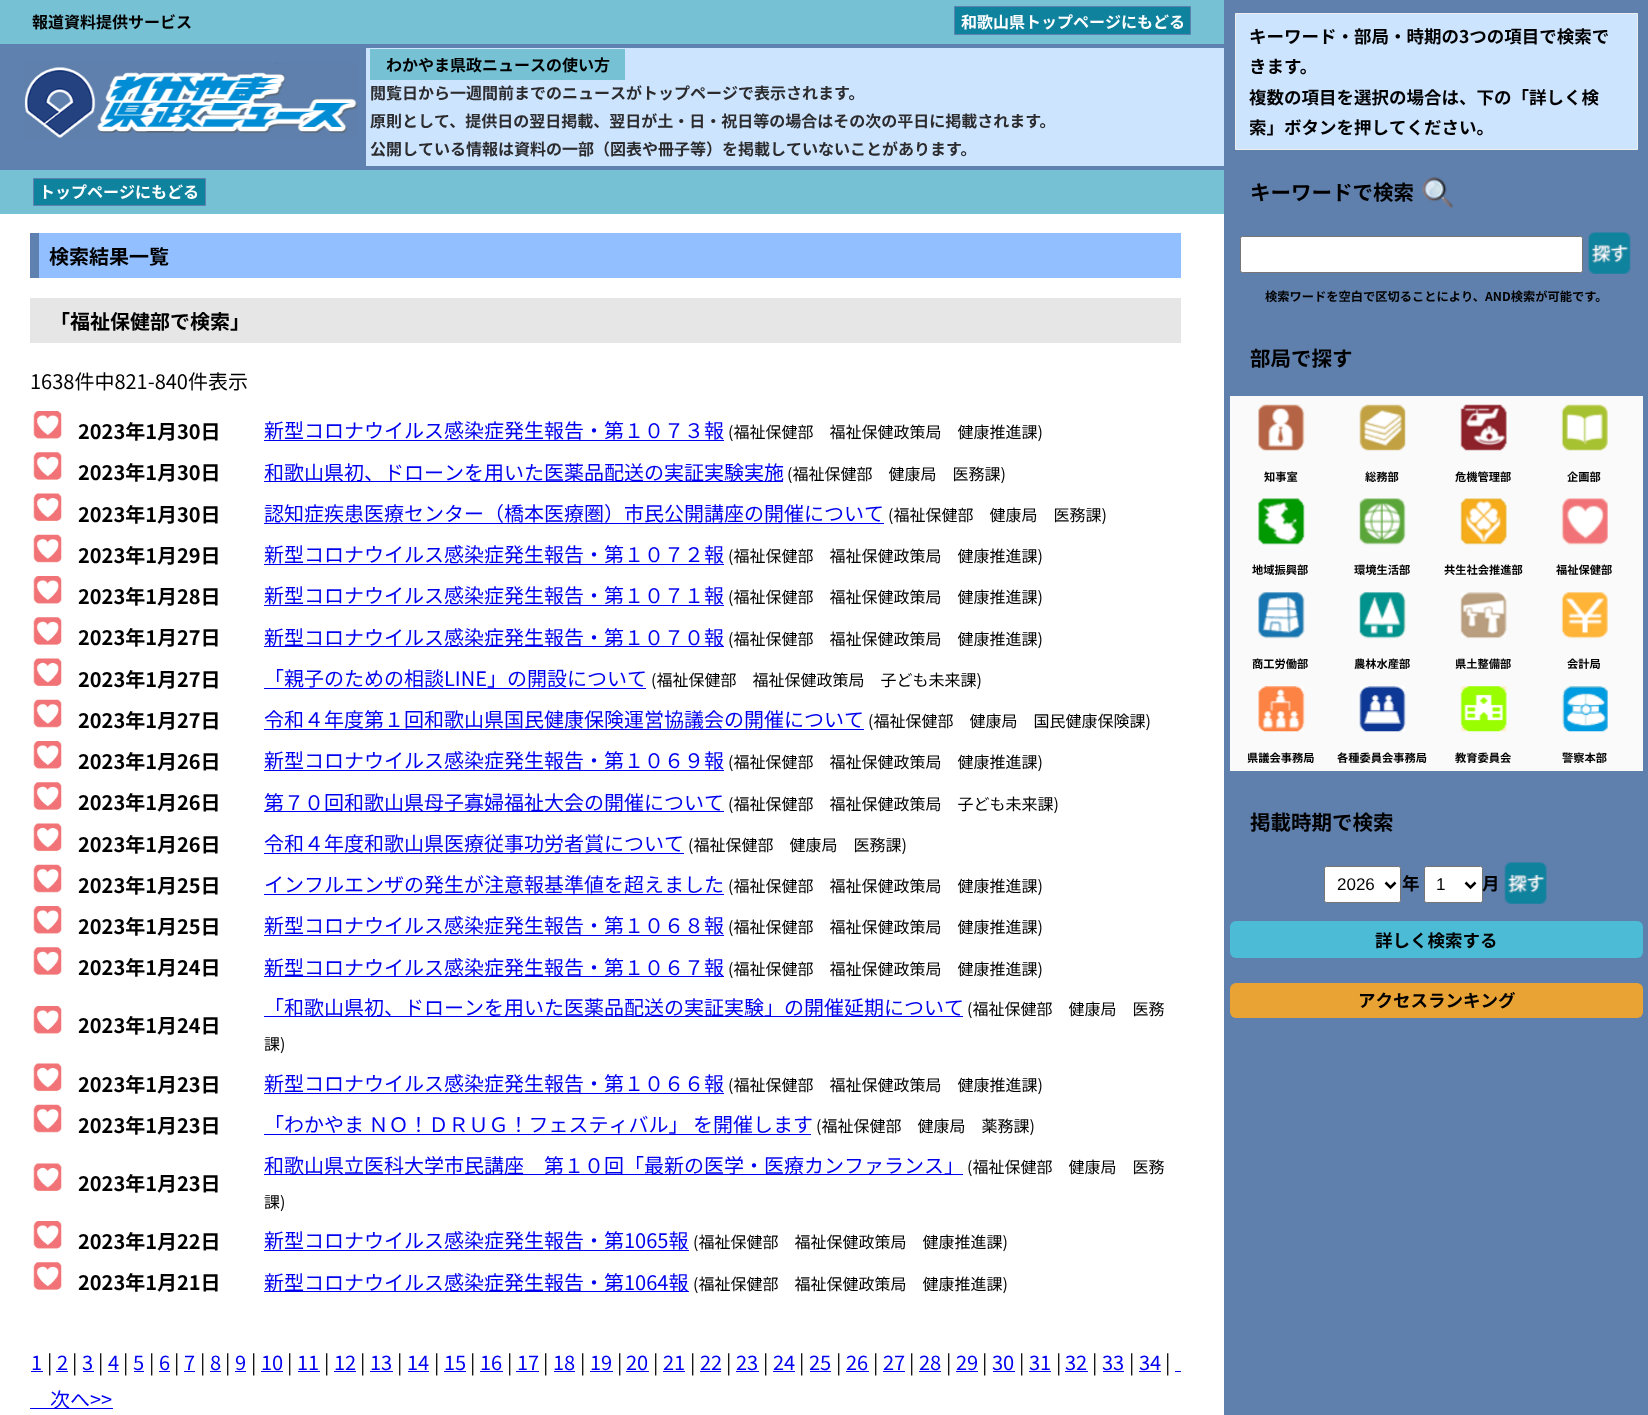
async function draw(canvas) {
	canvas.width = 1648;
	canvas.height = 1415;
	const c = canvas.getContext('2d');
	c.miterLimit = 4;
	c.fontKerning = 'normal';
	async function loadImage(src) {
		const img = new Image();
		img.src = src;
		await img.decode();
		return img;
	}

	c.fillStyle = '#fff';
	c.fillRect(0, 0, 1648, 1415);
	c.fillStyle = '#5f81b0';
	c.fillRect(0, 44, 1224, 126);
	c.fillStyle = '#76c1d4';
	c.fillRect(0, 0, 1224, 44);
	c.font = 'bold 16px Noto Sans JP';
	c.fillStyle = '#000';
	c.fillText('報道資料提供サービス', 32, 28);
	c.fillStyle = '#0f829e';
	c.beginPath();
	c.rect(954.5, 6.5, 236, 28);
	c.fill();
	c.strokeStyle = '#5f81b0';
	c.stroke();
	c.fillStyle = '#fff';
	c.fillText('和歌山県トップページにもどる', 961, 28);
	c.drawImage(await loadImage('img1.png'), 24, 62, 334, 76);
	c.fillStyle = '#cde4ff';
	c.fillRect(366, 48, 858, 118);
	c.fillStyle = '#76c1d4';
	c.fillRect(370, 49, 255, 31);
	c.fillStyle = '#000';
	c.fillText('わかやま県政ニュースの使い方', 386, 71);
	c.fillStyle = '#2c2c2f';
	for (const [text, x, y] of [
		['閲覧日から一週間前までのニュースがトップページで表示されます。', 370, 99],
		['原則として、提供日の翌日掲載、翌日が土・日・祝日等の場合はその次の平日に掲載されます。', 370, 127],
		['公開している情報は資料の一部（図表や冊子等）を掲載していないことがあります。', 370, 155],
	]) {
		c.fillText(text, x, y);
	}
	c.fillStyle = '#76c1d4';
	c.fillRect(0, 170, 1224, 44);
	c.fillStyle = '#0f829e';
	c.beginPath();
	c.rect(33.5, 178.5, 172, 27);
	c.fill();
	c.stroke();
	c.fillStyle = '#fff';
	c.fillText('トップページにもどる', 39, 198);
	c.fillStyle = '#5f80ad';
	c.fillRect(1224, 0, 424, 1415);
	c.fillStyle = '#cde4ff';
	c.beginPath();
	c.rect(1235.5, 13.5, 402, 136);
	c.fill();
	c.strokeStyle = '#eee';
	c.stroke();
	c.font = 'bold 17.5px Noto Sans JP';
	c.fillStyle = '#000';
	for (const [text, x, y] of [
		['キーワード・部局・時期の3つの項目で検索で', 1249, 43],
		['きます。', 1249, 73],
		['複数の項目を選択の場合は、下の「詳しく検', 1249, 104],
		['索」ボタンを押してください。', 1249, 134],
	]) {
		c.fillText(text, x, y);
	}
	c.font = 'bold 20.5px Noto Sans JP';
	c.fillText('キーワードで検索', 1250, 200);
	c.drawImage(await loadImage('img2.png'), 1422, 177, 31, 31);
	c.fillStyle = '#fff';
	c.beginPath();
	c.roundRect(1240.5, 236.5, 342, 36, 2);
	c.fill();
	c.strokeStyle = '#767676';
	c.stroke();
	c.drawImage(await loadImage('img3.png'), 1588, 232, 43, 42);
	c.font = 'bold 12.25px Noto Sans JP';
	c.fillStyle = '#000';
	c.fillText('検索ワードを空白で区切ることにより、AND検索が可能です。', 1265, 301);
	c.font = 'bold 20.5px Noto Sans JP';
	c.fillText('部局で探す', 1250, 366);
	c.fillStyle = '#fafafa';
	c.fillRect(1230, 396, 413, 375);
	c.drawImage(await loadImage('img4.png'), 1258, 404, 47, 47);
	c.font = 'bold 11.25px Noto Sans JP';
	c.fillStyle = '#000';
	c.fillText('知事室', 1264, 481);
	c.drawImage(await loadImage('img5.png'), 1359, 404, 47, 47);
	c.fillText('総務部', 1365, 481);
	c.drawImage(await loadImage('img6.png'), 1460, 404, 47, 47);
	c.fillText('危機管理部', 1455, 481);
	c.drawImage(await loadImage('img7.png'), 1561, 404, 47, 47);
	c.fillText('企画部', 1567, 481);
	c.drawImage(await loadImage('img8.png'), 1258, 498, 47, 47);
	c.fillText('地域振興部', 1252, 574);
	c.drawImage(await loadImage('img9.png'), 1359, 498, 47, 47);
	c.fillText('環境生活部', 1354, 574);
	c.drawImage(await loadImage('img10.png'), 1460, 498, 47, 47);
	c.fillText('共生社会推進部', 1444, 574);
	c.drawImage(await loadImage('img11.png'), 1561, 498, 47, 47);
	c.fillText('福祉保健部', 1556, 574);
	c.drawImage(await loadImage('img12.png'), 1258, 592, 47, 47);
	c.fillText('商工労働部', 1252, 668);
	c.drawImage(await loadImage('img13.png'), 1359, 592, 47, 47);
	c.fillText('農林水産部', 1354, 668);
	c.drawImage(await loadImage('img14.png'), 1460, 592, 47, 47);
	c.fillText('県土整備部', 1455, 668);
	c.drawImage(await loadImage('img15.png'), 1561, 592, 47, 47);
	c.fillText('会計局', 1567, 668);
	c.drawImage(await loadImage('img16.png'), 1258, 686, 47, 46);
	c.fillText('県議会事務局', 1247, 762);
	c.drawImage(await loadImage('img17.png'), 1359, 686, 47, 46);
	c.fillText('各種委員会事務局', 1337, 762);
	c.drawImage(await loadImage('img18.png'), 1460, 686, 47, 46);
	c.fillText('教育委員会', 1455, 762);
	c.drawImage(await loadImage('img19.png'), 1562, 686, 46, 46);
	c.fillText('警察本部', 1562, 762);
	c.font = 'bold 20.5px Noto Sans JP';
	c.fillText('掲載時期で検索', 1250, 830);
	c.fillStyle = '#fff';
	c.beginPath();
	c.roundRect(1324.5, 866.5, 76, 36, 2);
	c.fill();
	c.stroke();
	c.beginPath();
	c.moveTo(1385.5, 882.5);
	c.lineTo(1390.5, 887.5);
	c.lineTo(1395.5, 882.5);
	c.strokeStyle = '#000';
	c.lineWidth = 2.5;
	c.stroke();
	c.font = '17px Liberation Sans';
	c.fillStyle = '#000';
	c.fillText('2026', 1337, 890);
	c.font = 'bold 17.5px Noto Sans JP';
	c.fillText('年', 1402, 890);
	c.fillStyle = '#fff';
	c.beginPath();
	c.roundRect(1424.5, 866.5, 58, 36, 2);
	c.fill();
	c.strokeStyle = '#767676';
	c.lineWidth = 1;
	c.stroke();
	c.beginPath();
	c.moveTo(1465.5, 882.5);
	c.lineTo(1470.5, 887.5);
	c.lineTo(1475.5, 882.5);
	c.strokeStyle = '#000';
	c.lineWidth = 2.5;
	c.stroke();
	c.font = '17px Liberation Sans';
	c.fillStyle = '#000';
	c.fillText('1', 1436, 890);
	c.font = 'bold 17.5px Noto Sans JP';
	c.fillText('月', 1482, 890);
	c.drawImage(await loadImage('img20.png'), 1504, 862, 43, 42);
	c.fillStyle = '#4cbcd6';
	c.beginPath();
	c.roundRect(1230, 921, 413, 37, 6);
	c.fill();
	c.fillStyle = '#000';
	c.fillText('詳しく検索する', 1375, 947);
	c.fillStyle = '#e8a334';
	c.beginPath();
	c.roundRect(1230, 983, 413, 35, 6);
	c.fill();
	c.fillStyle = '#000';
	c.fillText('アクセスランキング', 1358, 1007);
	c.fillStyle = '#91bfff';
	c.fillRect(39, 233, 1142, 45);
	c.fillStyle = '#5f81b0';
	c.fillRect(30, 233, 9, 45);
	c.font = 'bold 20px Noto Sans JP';
	c.fillStyle = '#000';
	c.fillText('検索結果一覧', 49, 264);
	c.fillStyle = '#e6e6e6';
	c.fillRect(30, 298, 1151, 45);
	c.fillStyle = '#000';
	c.fillText('「福祉保健部で検索」', 50, 329);
	c.font = '20px Noto Sans JP';
	c.fillText('1638件中821-840件表示', 30, 389);
	c.drawImage(await loadImage('img21.png'), 33, 411, 29, 28);
	c.font = 'bold 20px Noto Sans JP';
	c.fillText('2023年1月30日', 78, 439);
	c.font = '20px Noto Sans JP';
	c.fillStyle = '#00e';
	c.fillText('新型コロナウイルス感染症発生報告・第１０７３報', 264, 438);
	c.fillRect(264, 440, 460, 1);
	c.font = '16px Noto Sans JP';
	c.fillStyle = '#000';
	c.fillText('(福祉保健部　福祉保健政策局　健康推進課)', 728, 438);
	c.drawImage(await loadImage('img22.png'), 33, 452, 29, 28);
	c.font = 'bold 20px Noto Sans JP';
	c.fillText('2023年1月30日', 78, 480);
	c.fillStyle = '#00e';
	c.fillRect(264, 481, 519, 1);
	c.font = '20px Noto Sans JP';
	c.fillText('和歌山県初、ドローンを用いた医薬品配送の実証実験実施', 264, 480);
	c.font = '16px Noto Sans JP';
	c.fillStyle = '#000';
	c.fillText('(福祉保健部　健康局　医務課)', 787, 480);
	c.drawImage(await loadImage('img23.png'), 33, 493, 29, 28);
	c.font = 'bold 20px Noto Sans JP';
	c.fillText('2023年1月30日', 78, 522);
	c.font = '20px Noto Sans JP';
	c.fillStyle = '#00e';
	c.fillText('認知症疾患医療センター（橋本医療圏）市民公開講座の開催について', 264, 521);
	c.fillRect(264, 523, 620, 1);
	c.font = '16px Noto Sans JP';
	c.fillStyle = '#000';
	c.fillText('(福祉保健部　健康局　医務課)', 888, 521);
	c.drawImage(await loadImage('img24.png'), 33, 534, 29, 29);
	c.font = 'bold 20px Noto Sans JP';
	c.fillText('2023年1月29日', 78, 563);
	c.font = '20px Noto Sans JP';
	c.fillStyle = '#00e';
	c.fillText('新型コロナウイルス感染症発生報告・第１０７２報', 264, 562);
	c.fillRect(264, 564, 460, 1);
	c.font = '16px Noto Sans JP';
	c.fillStyle = '#000';
	c.fillText('(福祉保健部　福祉保健政策局　健康推進課)', 728, 562);
	c.drawImage(await loadImage('img21.png'), 33, 576, 29, 28);
	c.font = 'bold 20px Noto Sans JP';
	c.fillText('2023年1月28日', 78, 604);
	c.font = '20px Noto Sans JP';
	c.fillStyle = '#00e';
	c.fillText('新型コロナウイルス感染症発生報告・第１０７１報', 264, 603);
	c.fillRect(264, 605, 460, 1);
	c.font = '16px Noto Sans JP';
	c.fillStyle = '#000';
	c.fillText('(福祉保健部　福祉保健政策局　健康推進課)', 728, 603);
	c.drawImage(await loadImage('img22.png'), 33, 617, 29, 28);
	c.font = 'bold 20px Noto Sans JP';
	c.fillText('2023年1月27日', 78, 645);
	c.fillStyle = '#00e';
	c.fillRect(264, 646, 460, 1);
	c.font = '20px Noto Sans JP';
	c.fillText('新型コロナウイルス感染症発生報告・第１０７０報', 264, 645);
	c.font = '16px Noto Sans JP';
	c.fillStyle = '#000';
	c.fillText('(福祉保健部　福祉保健政策局　健康推進課)', 728, 645);
	c.drawImage(await loadImage('img23.png'), 33, 658, 29, 28);
	c.font = 'bold 20px Noto Sans JP';
	c.fillText('2023年1月27日', 78, 687);
	c.font = '20px Noto Sans JP';
	c.fillStyle = '#00e';
	c.fillText('「親子のための相談LINE」の開設について', 264, 686);
	c.fillRect(264, 688, 382, 1);
	c.font = '16px Noto Sans JP';
	c.fillStyle = '#000';
	c.fillText('(福祉保健部　福祉保健政策局　子ども未来課)', 651, 686);
	c.drawImage(await loadImage('img24.png'), 33, 699, 29, 29);
	c.font = 'bold 20px Noto Sans JP';
	c.fillText('2023年1月27日', 78, 728);
	c.font = '20px Noto Sans JP';
	c.fillStyle = '#00e';
	c.fillText('令和４年度第１回和歌山県国民健康保険運営協議会の開催について', 264, 727);
	c.fillRect(264, 729, 600, 1);
	c.font = '16px Noto Sans JP';
	c.fillStyle = '#000';
	c.fillText('(福祉保健部　健康局　国民健康保険課)', 868, 727);
	c.drawImage(await loadImage('img21.png'), 33, 741, 29, 28);
	c.font = 'bold 20px Noto Sans JP';
	c.fillText('2023年1月26日', 78, 769);
	c.font = '20px Noto Sans JP';
	c.fillStyle = '#00e';
	c.fillText('新型コロナウイルス感染症発生報告・第１０６９報', 264, 768);
	c.fillRect(264, 770, 460, 1);
	c.font = '16px Noto Sans JP';
	c.fillStyle = '#000';
	c.fillText('(福祉保健部　福祉保健政策局　健康推進課)', 728, 768);
	c.drawImage(await loadImage('img22.png'), 33, 782, 29, 28);
	c.font = 'bold 20px Noto Sans JP';
	c.fillText('2023年1月26日', 78, 810);
	c.fillStyle = '#00e';
	c.fillRect(264, 811, 460, 1);
	c.font = '20px Noto Sans JP';
	c.fillText('第７０回和歌山県母子寡婦福祉大会の開催について', 264, 810);
	c.font = '16px Noto Sans JP';
	c.fillStyle = '#000';
	c.fillText('(福祉保健部　福祉保健政策局　子ども未来課)', 728, 810);
	c.drawImage(await loadImage('img23.png'), 33, 823, 29, 28);
	c.font = 'bold 20px Noto Sans JP';
	c.fillText('2023年1月26日', 78, 852);
	c.font = '20px Noto Sans JP';
	c.fillStyle = '#00e';
	c.fillText('令和４年度和歌山県医療従事功労者賞について', 264, 851);
	c.fillRect(264, 853, 420, 1);
	c.font = '16px Noto Sans JP';
	c.fillStyle = '#000';
	c.fillText('(福祉保健部　健康局　医務課)', 688, 851);
	c.drawImage(await loadImage('img24.png'), 33, 864, 29, 29);
	c.font = 'bold 20px Noto Sans JP';
	c.fillText('2023年1月25日', 78, 893);
	c.font = '20px Noto Sans JP';
	c.fillStyle = '#00e';
	c.fillText('インフルエンザの発生が注意報基準値を超えました', 264, 892);
	c.fillRect(264, 894, 460, 1);
	c.font = '16px Noto Sans JP';
	c.fillStyle = '#000';
	c.fillText('(福祉保健部　福祉保健政策局　健康推進課)', 728, 892);
	c.drawImage(await loadImage('img21.png'), 33, 906, 29, 28);
	c.font = 'bold 20px Noto Sans JP';
	c.fillText('2023年1月25日', 78, 934);
	c.font = '20px Noto Sans JP';
	c.fillStyle = '#00e';
	c.fillText('新型コロナウイルス感染症発生報告・第１０６８報', 264, 933);
	c.fillRect(264, 935, 460, 1);
	c.font = '16px Noto Sans JP';
	c.fillStyle = '#000';
	c.fillText('(福祉保健部　福祉保健政策局　健康推進課)', 728, 933);
	c.drawImage(await loadImage('img22.png'), 33, 947, 29, 28);
	c.font = 'bold 20px Noto Sans JP';
	c.fillText('2023年1月24日', 78, 975);
	c.fillStyle = '#00e';
	c.fillRect(264, 976, 460, 1);
	c.font = '20px Noto Sans JP';
	c.fillText('新型コロナウイルス感染症発生報告・第１０６７報', 264, 975);
	c.font = '16px Noto Sans JP';
	c.fillStyle = '#000';
	c.fillText('(福祉保健部　福祉保健政策局　健康推進課)', 728, 975);
	c.drawImage(await loadImage('img21.png'), 33, 1006, 29, 28);
	c.font = 'bold 20px Noto Sans JP';
	c.fillText('2023年1月24日', 78, 1033);
	c.fillStyle = '#00e';
	c.fillRect(264, 1016, 699, 1);
	c.font = '20px Noto Sans JP';
	c.fillText('「和歌山県初、ドローンを用いた医薬品配送の実証実験」の開催延期について', 264, 1015);
	c.font = '16px Noto Sans JP';
	c.fillStyle = '#000';
	c.fillText('(福祉保健部　健康局　医務', 967, 1015);
	c.fillText('課)', 264, 1050);
	c.drawImage(await loadImage('img23.png'), 33, 1063, 29, 28);
	c.font = 'bold 20px Noto Sans JP';
	c.fillText('2023年1月23日', 78, 1092);
	c.font = '20px Noto Sans JP';
	c.fillStyle = '#00e';
	c.fillText('新型コロナウイルス感染症発生報告・第１０６６報', 264, 1091);
	c.fillRect(264, 1093, 460, 1);
	c.font = '16px Noto Sans JP';
	c.fillStyle = '#000';
	c.fillText('(福祉保健部　福祉保健政策局　健康推進課)', 728, 1091);
	c.drawImage(await loadImage('img24.png'), 33, 1104, 29, 29);
	c.font = 'bold 20px Noto Sans JP';
	c.fillText('2023年1月23日', 78, 1133);
	c.font = '20px Noto Sans JP';
	c.fillStyle = '#00e';
	c.fillText('「わかやま ＮＯ！ＤＲＵＧ！フェスティバル」 を開催します', 264, 1132);
	c.fillRect(264, 1134, 547, 1);
	c.font = '16px Noto Sans JP';
	c.fillStyle = '#000';
	c.fillText('(福祉保健部　健康局　薬務課)', 816, 1132);
	c.drawImage(await loadImage('img23.png'), 33, 1163, 29, 28);
	c.font = 'bold 20px Noto Sans JP';
	c.fillText('2023年1月23日', 78, 1191);
	c.fillStyle = '#00e';
	c.fillRect(264, 1174, 699, 1);
	c.font = '20px Noto Sans JP';
	c.fillText('和歌山県立医科大学市民講座　第１０回「最新の医学・医療カンファランス」', 264, 1173);
	c.font = '16px Noto Sans JP';
	c.fillStyle = '#000';
	c.fillText('(福祉保健部　健康局　医務', 967, 1173);
	c.fillText('課)', 264, 1208);
	c.drawImage(await loadImage('img21.png'), 33, 1221, 29, 28);
	c.font = 'bold 20px Noto Sans JP';
	c.fillText('2023年1月22日', 78, 1249);
	c.font = '20px Noto Sans JP';
	c.fillStyle = '#00e';
	c.fillText('新型コロナウイルス感染症発生報告・第1065報', 264, 1248);
	c.fillRect(264, 1250, 425, 1);
	c.font = '16px Noto Sans JP';
	c.fillStyle = '#000';
	c.fillText('(福祉保健部　福祉保健政策局　健康推進課)', 693, 1248);
	c.drawImage(await loadImage('img22.png'), 33, 1262, 29, 28);
	c.font = 'bold 20px Noto Sans JP';
	c.fillText('2023年1月21日', 78, 1290);
	c.fillStyle = '#00e';
	c.fillRect(264, 1291, 425, 1);
	c.font = '20px Noto Sans JP';
	c.fillText('新型コロナウイルス感染症発生報告・第1064報', 264, 1290);
	c.font = '16px Noto Sans JP';
	c.fillStyle = '#000';
	c.fillText('(福祉保健部　福祉保健政策局　健康推進課)', 693, 1290);
	c.font = '20px Noto Sans JP';
	c.fillStyle = '#00e';
	c.fillText('1', 31, 1370);
	c.fillRect(31, 1371, 12, 1);
	c.fillStyle = '#000';
	c.fillText('|', 47, 1370);
	c.fillStyle = '#00e';
	c.fillText('2', 57, 1370);
	c.fillRect(56, 1371, 12, 1);
	c.fillStyle = '#000';
	c.fillText('|', 72, 1370);
	c.fillStyle = '#00e';
	c.fillText('3', 82, 1370);
	c.fillRect(83, 1371, 11, 1);
	c.fillStyle = '#000';
	c.fillText('|', 98, 1370);
	c.fillStyle = '#00e';
	c.fillText('4', 108, 1370);
	c.fillRect(108, 1371, 11, 1);
	c.fillStyle = '#000';
	c.fillText('|', 123, 1370);
	c.fillStyle = '#00e';
	c.fillText('5', 133, 1370);
	c.fillRect(134, 1371, 10, 1);
	c.fillStyle = '#000';
	c.fillText('|', 149, 1370);
	c.fillStyle = '#00e';
	c.fillText('6', 159, 1370);
	c.fillRect(159, 1371, 11, 1);
	c.fillStyle = '#000';
	c.fillText('|', 174, 1370);
	c.fillStyle = '#00e';
	c.fillText('7', 184, 1370);
	c.fillRect(184, 1371, 11, 1);
	c.fillStyle = '#000';
	c.fillText('|', 200, 1370);
	c.fillStyle = '#00e';
	c.fillText('8', 210, 1370);
	c.fillRect(210, 1371, 11, 1);
	c.fillStyle = '#000';
	c.fillText('|', 225, 1370);
	c.fillStyle = '#00e';
	c.fillText('9', 235, 1370);
	c.fillRect(235, 1371, 11, 1);
	c.fillStyle = '#000';
	c.fillText('|', 251, 1370);
	c.fillStyle = '#00e';
	c.fillText('10', 261, 1370);
	c.fillRect(261, 1371, 22, 1);
	c.fillStyle = '#000';
	c.fillText('|', 287, 1370);
	c.fillStyle = '#00e';
	c.fillText('11', 297, 1370);
	c.fillRect(298, 1371, 22, 1);
	c.fillStyle = '#000';
	c.fillText('|', 324, 1370);
	c.fillStyle = '#00e';
	c.fillText('12', 334, 1370);
	c.fillRect(334, 1371, 22, 1);
	c.fillStyle = '#000';
	c.fillText('|', 360, 1370);
	c.fillStyle = '#00e';
	c.fillText('13', 370, 1370);
	c.fillRect(370, 1371, 23, 1);
	c.fillStyle = '#000';
	c.fillText('|', 397, 1370);
	c.fillStyle = '#00e';
	c.fillText('14', 407, 1370);
	c.fillRect(408, 1371, 21, 1);
	c.fillStyle = '#000';
	c.fillText('|', 434, 1370);
	c.fillStyle = '#00e';
	c.fillText('15', 444, 1370);
	c.fillRect(444, 1371, 22, 1);
	c.fillStyle = '#000';
	c.fillText('|', 470, 1370);
	c.fillStyle = '#00e';
	c.fillText('16', 480, 1370);
	c.fillRect(480, 1371, 23, 1);
	c.fillStyle = '#000';
	c.fillText('|', 507, 1370);
	c.fillStyle = '#00e';
	c.fillText('17', 517, 1370);
	c.fillRect(516, 1371, 23, 1);
	c.fillStyle = '#000';
	c.fillText('|', 543, 1370);
	c.fillStyle = '#00e';
	c.fillText('18', 553, 1370);
	c.fillRect(554, 1371, 21, 1);
	c.fillStyle = '#000';
	c.fillText('|', 580, 1370);
	c.fillStyle = '#00e';
	c.fillText('19', 590, 1370);
	c.fillRect(590, 1371, 23, 1);
	c.fillStyle = '#000';
	c.fillText('|', 617, 1370);
	c.fillStyle = '#00e';
	c.fillText('20', 626, 1370);
	c.fillRect(626, 1371, 23, 1);
	c.fillStyle = '#000';
	c.fillText('|', 653, 1370);
	c.fillStyle = '#00e';
	c.fillText('21', 663, 1370);
	c.fillRect(663, 1371, 22, 1);
	c.fillStyle = '#000';
	c.fillText('|', 690, 1370);
	c.fillStyle = '#00e';
	c.fillText('22', 700, 1370);
	c.fillRect(700, 1371, 21, 1);
	c.fillStyle = '#000';
	c.fillText('|', 726, 1370);
	c.fillStyle = '#00e';
	c.fillText('23', 736, 1370);
	c.fillRect(736, 1371, 23, 1);
	c.fillStyle = '#000';
	c.fillText('|', 763, 1370);
	c.fillStyle = '#00e';
	c.fillText('24', 773, 1370);
	c.fillRect(773, 1371, 22, 1);
	c.fillStyle = '#000';
	c.fillText('|', 799, 1370);
	c.fillStyle = '#00e';
	c.fillText('25', 809, 1370);
	c.fillRect(810, 1371, 21, 1);
	c.fillStyle = '#000';
	c.fillText('|', 836, 1370);
	c.fillStyle = '#00e';
	c.fillText('26', 846, 1370);
	c.fillRect(846, 1371, 23, 1);
	c.fillStyle = '#000';
	c.fillText('|', 873, 1370);
	c.fillStyle = '#00e';
	c.fillText('27', 883, 1370);
	c.fillRect(883, 1371, 22, 1);
	c.fillStyle = '#000';
	c.fillText('|', 909, 1370);
	c.fillStyle = '#00e';
	c.fillText('28', 919, 1370);
	c.fillRect(919, 1371, 22, 1);
	c.fillStyle = '#000';
	c.fillText('|', 946, 1370);
	c.fillStyle = '#00e';
	c.fillText('29', 956, 1370);
	c.fillRect(956, 1371, 22, 1);
	c.fillStyle = '#000';
	c.fillText('|', 982, 1370);
	c.fillStyle = '#00e';
	c.fillText('30', 992, 1370);
	c.fillRect(993, 1371, 22, 1);
	c.fillStyle = '#000';
	c.fillText('|', 1019, 1370);
	c.fillStyle = '#00e';
	c.fillText('31', 1029, 1370);
	c.fillRect(1029, 1371, 22, 1);
	c.fillStyle = '#000';
	c.fillText('|', 1056, 1370);
	c.fillStyle = '#00e';
	c.fillText('32', 1065, 1370);
	c.fillRect(1065, 1371, 23, 1);
	c.fillStyle = '#000';
	c.fillText('|', 1092, 1370);
	c.fillStyle = '#00e';
	c.fillText('33', 1102, 1370);
	c.fillRect(1103, 1371, 21, 1);
	c.fillStyle = '#000';
	c.fillText('|', 1129, 1370);
	c.fillStyle = '#00e';
	c.fillText('34', 1139, 1370);
	c.fillRect(1139, 1371, 22, 1);
	c.fillStyle = '#000';
	c.fillText('|', 1165, 1370);
	c.fillStyle = '#00e';
	c.fillRect(1175, 1371, 6, 1);
	c.fillRect(30, 1408, 83, 1);
	c.fillText('次へ>>', 50, 1407);
}

draw(document.querySelector('canvas'));
